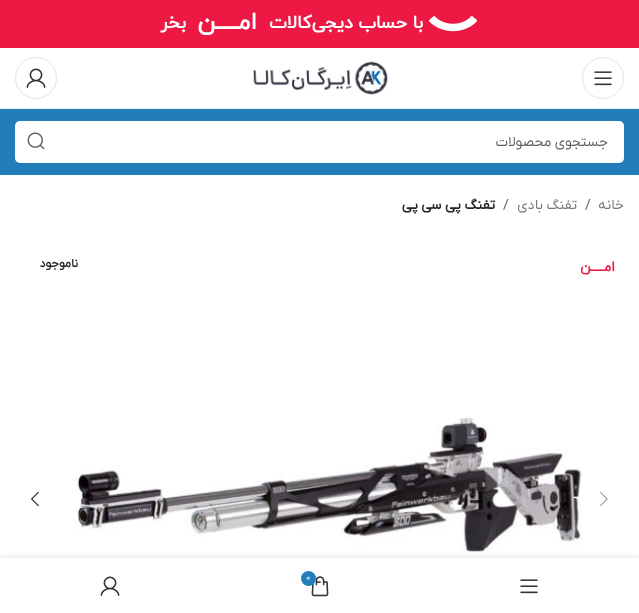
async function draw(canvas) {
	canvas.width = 639;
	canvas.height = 613;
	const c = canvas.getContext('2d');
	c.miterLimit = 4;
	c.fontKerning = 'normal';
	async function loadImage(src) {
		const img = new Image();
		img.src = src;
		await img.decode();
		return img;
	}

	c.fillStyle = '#fff';
	c.fillRect(0, 0, 639, 613);
	c.fillStyle = '#ed1944';
	c.fillRect(0, 0, 639, 48);
	c.drawImage(await loadImage('img1.png'), 429, 16, 48, 16);
	c.direction = 'rtl';
	c.font = 'bold 18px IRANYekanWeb';
	c.fillStyle = '#fff';
	c.fillText('با حساب دیجی‌کالات', 423, 28);
	c.font = 'bold 24px IRANYekanWeb';
	c.fillText('امـــــن', 257, 29);
	c.font = 'bold 18px IRANYekanWeb';
	c.fillText('بخر', 186, 28);
	c.fillStyle = '#e6e6e6';
	c.fillRect(0, 108, 639, 1);
	c.beginPath();
	c.arc(603, 78, 20.5, 0, 2 * Math.PI);
	c.strokeStyle = '#e4e4e4';
	c.stroke();
	c.drawImage(await loadImage('img2.png'), 594, 71, 18, 15);
	c.drawImage(await loadImage('img3.png'), 253, 61, 136, 34);
	c.beginPath();
	c.arc(36, 78, 20.5, 0, 2 * Math.PI);
	c.stroke();
	c.drawImage(await loadImage('img4.png'), 26, 68, 20, 20);
	c.fillStyle = '#227db9';
	c.fillRect(0, 109, 639, 66);
	c.fillStyle = '#fff';
	c.beginPath();
	c.roundRect(15, 121, 609, 42, 5);
	c.fill();
	c.beginPath();
	c.roundRect(15.5, 121.5, 608, 41, 4.5);
	c.strokeStyle = '#ffffff33';
	c.stroke();
	c.font = '14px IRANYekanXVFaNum';
	c.fillStyle = '#606060';
	c.fillText('جستجوی محصولات', 608, 146);
	c.drawImage(await loadImage('img5.png'), 27, 132, 18, 18);
	c.fillStyle = '#767676';
	c.fillText('خانه', 624, 209);
	c.direction = 'ltr';
	c.fillStyle = '#666';
	c.fillText('/', 585, 209);
	c.direction = 'rtl';
	c.fillStyle = '#767676';
	c.fillText('تفنگ بادی', 577, 209);
	c.direction = 'ltr';
	c.fillStyle = '#666';
	c.fillText('/', 503, 209);
	c.direction = 'rtl';
	c.font = 'bold 14px IRANYekanXVFaNum';
	c.fillStyle = '#242424';
	c.fillText('تفنگ پی سی پی', 495, 209);
	c.font = 'bold 14px IRANYekanWeb';
	c.fillStyle = '#ed1944';
	c.fillText('امـــــن', 615, 271);
	c.font = 'bold 12px IRANYekanXVFaNum';
	c.fillStyle = '#242424';
	c.fillText('ناموجود', 78, 267);
	c.drawImage(await loadImage('img6.png'), 73, 416, 510, 138);
	c.drawImage(await loadImage('img7.png'), 600, 491, 8, 16);
	c.drawImage(await loadImage('img8.png'), 31, 491, 8, 16);
	c.save();
	c.beginPath();
	c.rect(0, 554, 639, 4);
	c.clip();
	c.fillStyle = '#0000001f';
	c.filter = 'blur(4.5px)';
	c.beginPath();
	c.rect(0, 558, 639, 55);
	c.fill();
	c.filter = 'none';
	c.restore();
	c.drawImage(await loadImage('img9.png'), 311, 576, 18, 21);
	c.fillStyle = '#227db9';
	c.beginPath();
	c.arc(308.5, 578.5, 7.5, 0, 2 * Math.PI);
	c.fill();
	c.direction = 'ltr';
	c.font = '9px IRANYekanXVFaNum';
	c.fillStyle = '#fff';
	c.fillText('0', 306, 580);
	c.drawImage(await loadImage('img4.png'), 100, 576, 20, 20);
	c.drawImage(await loadImage('img2.png'), 520, 579, 18, 15);
}

draw(document.querySelector('canvas'));
